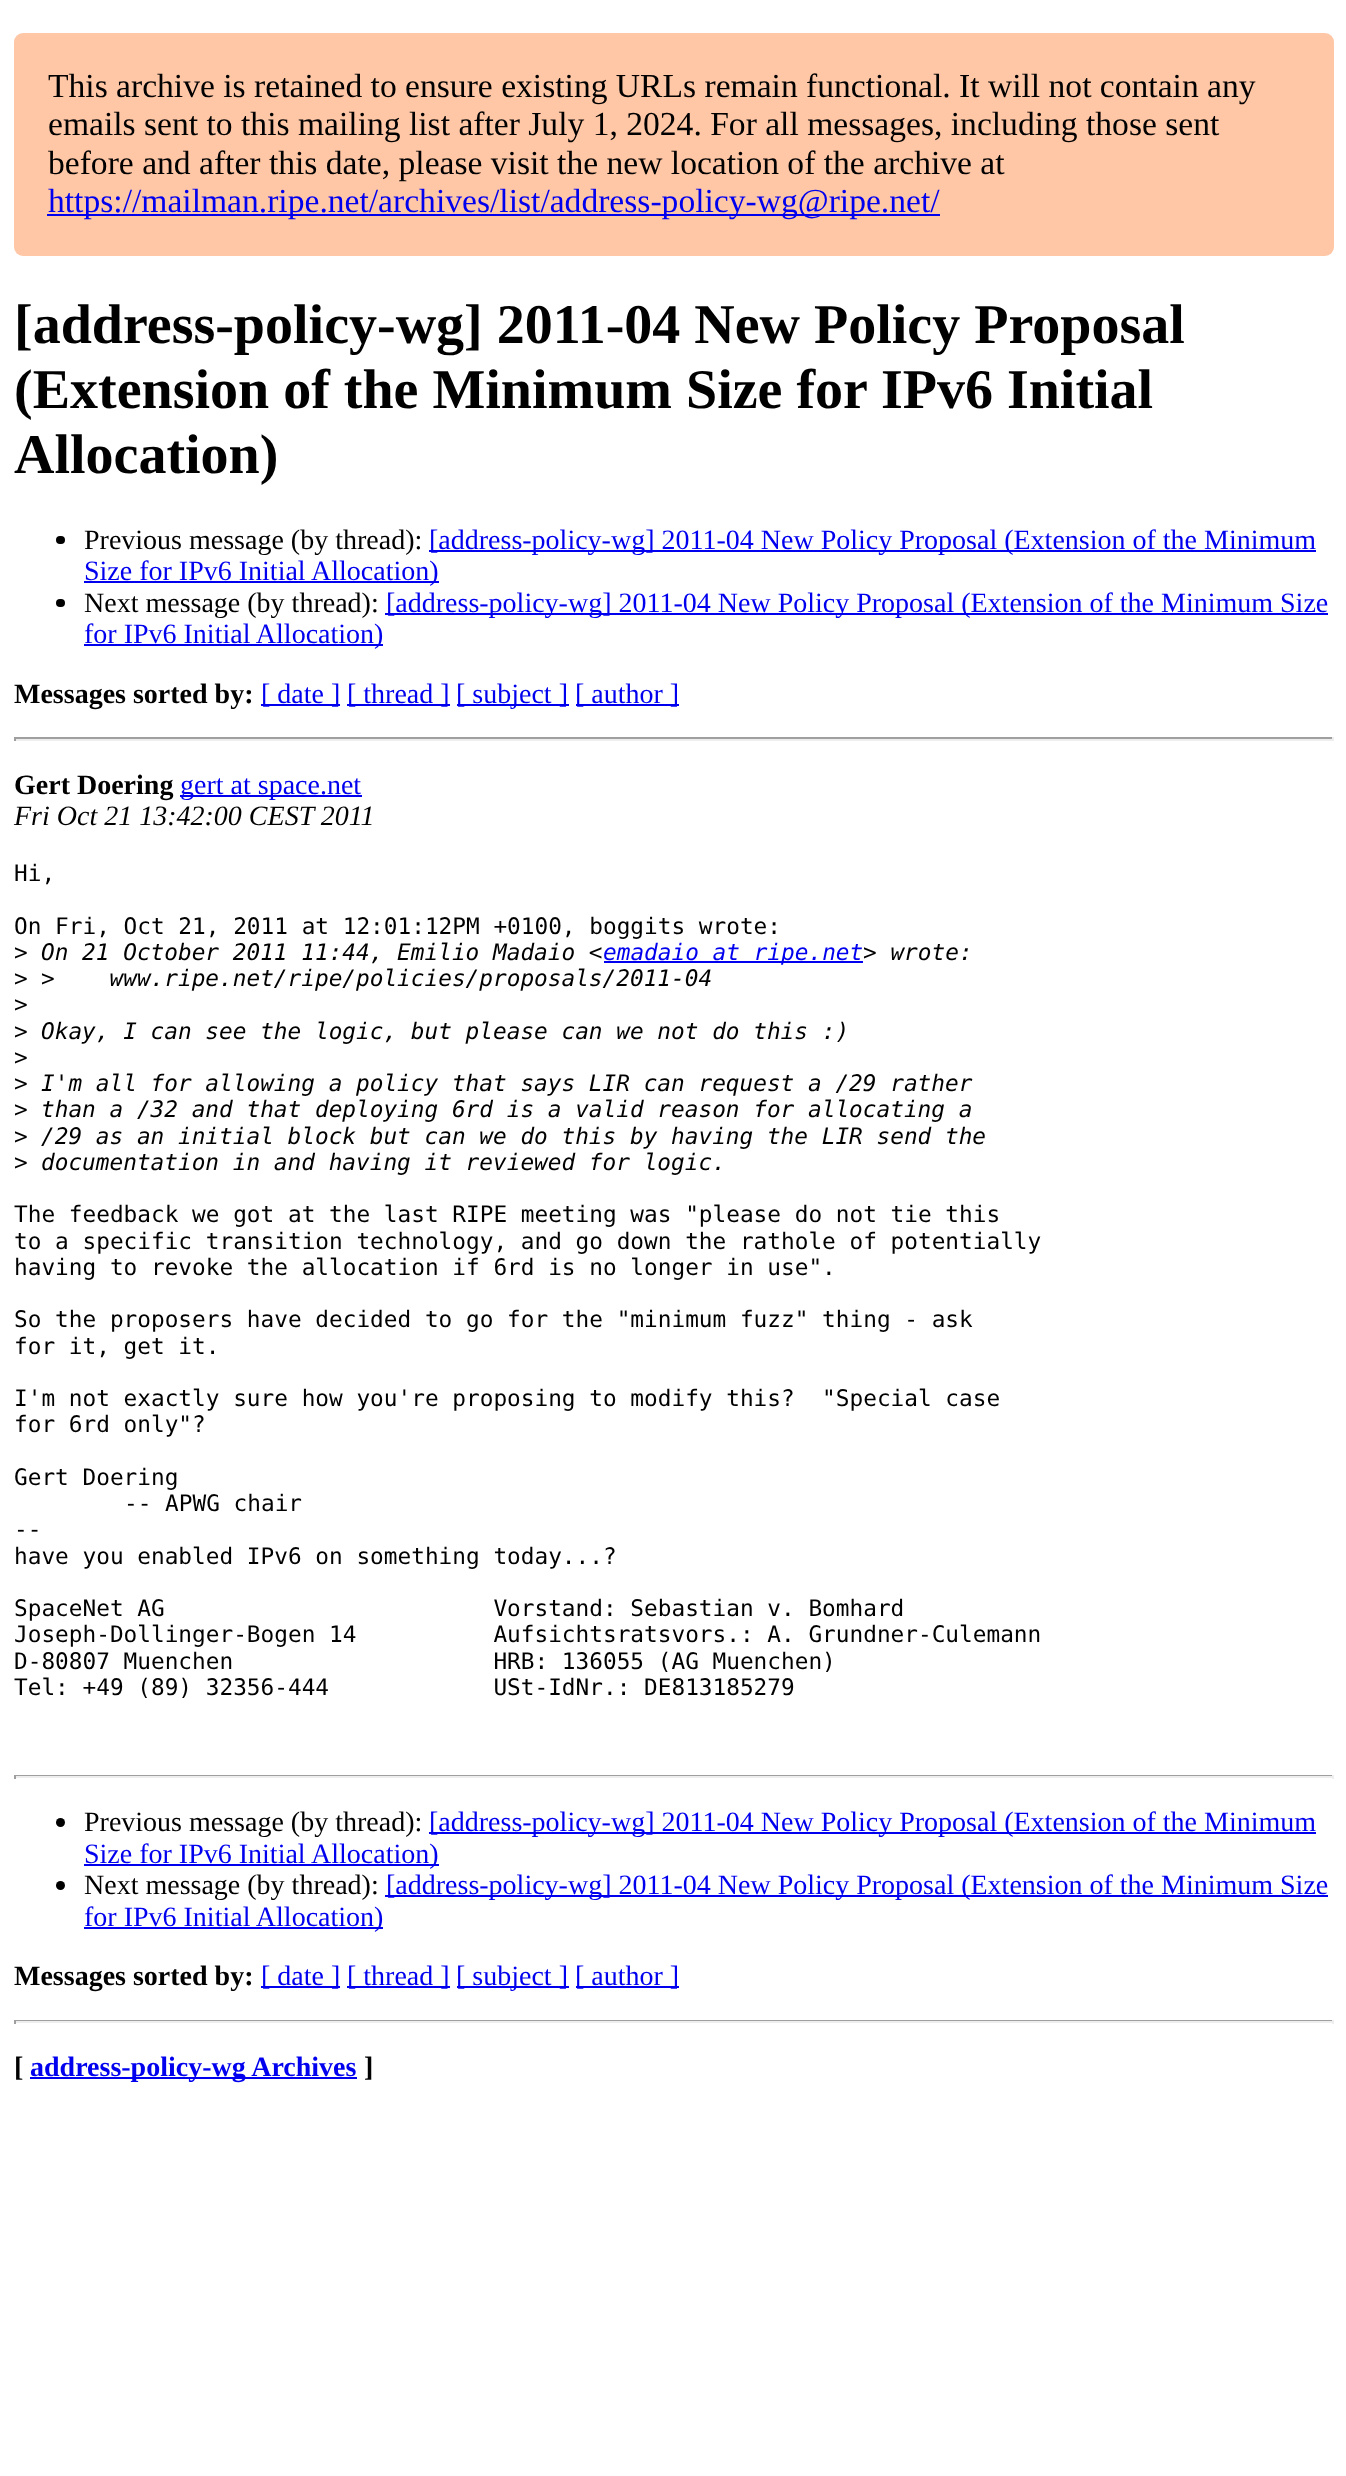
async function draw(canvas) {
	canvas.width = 1346;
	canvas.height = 2476;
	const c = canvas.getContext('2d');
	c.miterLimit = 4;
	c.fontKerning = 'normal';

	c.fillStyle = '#fff';
	c.fillRect(0, 0, 1346, 2476);
	c.fillStyle = '#ffc7a6';
	c.beginPath();
	c.roundRect(14, 33, 1320, 223, 9);
	c.fill();
	c.font = '33.6px Liberation Serif';
	c.fillStyle = '#000';
	for (const [text, x, y] of [
		['This archive is retained to ensure existing URLs remain functional. It will not contain any', 48, 97],
		['emails sent to this mailing list after July 1, 2024. For all messages, including those sent', 48, 135],
		['before and after this date, please visit the new location of the archive at', 48, 174],
	]) {
		c.fillText(text, x, y);
	}
	c.fillStyle = '#00e';
	c.fillRect(47, 214, 893, 2);
	c.fillText('https://mailman.ripe.net/archives/list/address-policy-wg@ripe.net/', 48, 212);
	c.font = 'bold 56px Liberation Serif';
	c.fillStyle = '#000';
	for (const [text, x, y] of [
		['[address-policy-wg] 2011-04 New Policy Proposal', 14, 343],
		['(Extension of the Minimum Size for IPv6 Initial', 14, 408],
		['Allocation)', 14, 473],
	]) {
		c.fillText(text, x, y);
	}
	c.beginPath();
	c.roundRect(56, 536, 9, 8, 4);
	c.fill();
	c.font = '28px Liberation Serif';
	c.fillText('Previous message (by thread):', 84, 549);
	c.fillStyle = '#00e';
	c.fillRect(429, 550, 887, 2);
	c.fillText('[address-policy-wg] 2011-04 New Policy Proposal (Extension of the Minimum', 429, 549);
	c.fillRect(84, 581, 355, 2);
	c.fillText('Size for IPv6 Initial Allocation)', 84, 580);
	c.fillStyle = '#000';
	c.beginPath();
	c.roundRect(56, 599, 9, 8, 4);
	c.fill();
	c.fillText('Next message (by thread):', 84, 612);
	c.fillStyle = '#00e';
	c.fillRect(385, 613, 943, 2);
	c.fillText('[address-policy-wg] 2011-04 New Policy Proposal (Extension of the Minimum Size', 386, 612);
	c.fillRect(84, 644, 299, 2);
	c.fillText('for IPv6 Initial Allocation)', 84, 643);
	c.font = 'bold 28px Liberation Serif';
	c.fillStyle = '#000';
	c.fillText('Messages sorted by:', 14, 703);
	c.fillStyle = '#00e';
	c.fillRect(261, 704, 79, 2);
	c.font = '28px Liberation Serif';
	c.fillText('[ date ]', 261, 703);
	c.fillRect(347, 704, 103, 2);
	c.fillText('[ thread ]', 347, 703);
	c.fillRect(457, 704, 112, 2);
	c.fillText('[ subject ]', 456, 703);
	c.fillRect(576, 704, 103, 2);
	c.fillText('[ author ]', 575, 703);
	for (const [x, y, w, h, color] of [
		[14, 737, 1320, 2, '#9f9f9f'],
		[1332, 737, 2, 4, '#eee'],
		[14, 739, 1320, 2, '#eee'],
		[14, 737, 2, 4, '#9f9f9f'],
	]) {
		c.fillStyle = color;
		c.fillRect(x, y, w, h);
	}
	c.font = 'bold 28px Liberation Serif';
	c.fillStyle = '#000';
	c.fillText('Gert Doering', 14, 794);
	c.fillStyle = '#00e';
	c.fillRect(180, 795, 182, 2);
	c.font = '28px Liberation Serif';
	c.fillText('gert at space.net', 180, 794);
	c.font = 'italic 28px Liberation Serif';
	c.fillStyle = '#000';
	c.fillText('Fri Oct 21 13:42:00 CEST 2011', 14, 825);
	c.font = '22.75px DejaVu Sans Mono';
	for (const [text, x, y] of [
		['Hi,', 14, 881],
		['On Fri, Oct 21, 2011 at 12:01:12PM +0100, boggits wrote:', 14, 934],
		['>', 14, 960],
	]) {
		c.fillText(text, x, y);
	}
	c.font = 'italic 22.75px DejaVu Sans Mono';
	c.fillText('On 21 October 2011 11:44, Emilio Madaio <', 41, 960);
	c.fillStyle = '#00e';
	c.fillRect(604, 961, 259, 2);
	c.fillText('emadaio at ripe.net', 603, 960);
	c.fillStyle = '#000';
	c.fillText('> wrote:', 863, 960);
	c.font = '22.75px DejaVu Sans Mono';
	c.fillText('>', 14, 986);
	c.font = 'italic 22.75px DejaVu Sans Mono';
	c.fillText('>    www.ripe.net/ripe/policies/proposals/2011-04', 41, 986);
	c.font = '22.75px DejaVu Sans Mono';
	c.fillText('>', 14, 1012);
	c.fillText('>', 14, 1039);
	c.font = 'italic 22.75px DejaVu Sans Mono';
	c.fillText('Okay, I can see the logic, but please can we not do this :)', 41, 1039);
	c.font = '22.75px DejaVu Sans Mono';
	c.fillText('>', 14, 1065);
	c.fillText('>', 14, 1091);
	c.font = 'italic 22.75px DejaVu Sans Mono';
	c.fillText('I\'m all for allowing a policy that says LIR can request a /29 rather', 41, 1091);
	c.font = '22.75px DejaVu Sans Mono';
	c.fillText('>', 14, 1117);
	c.font = 'italic 22.75px DejaVu Sans Mono';
	c.fillText('than a /32 and that deploying 6rd is a valid reason for allocating a', 41, 1117);
	c.font = '22.75px DejaVu Sans Mono';
	c.fillText('>', 14, 1144);
	c.font = 'italic 22.75px DejaVu Sans Mono';
	c.fillText('/29 as an initial block but can we do this by having the LIR send the', 41, 1144);
	c.font = '22.75px DejaVu Sans Mono';
	c.fillText('>', 14, 1170);
	c.font = 'italic 22.75px DejaVu Sans Mono';
	c.fillText('documentation in and having it reviewed for logic.', 41, 1170);
	c.font = '22.75px DejaVu Sans Mono';
	for (const [text, x, y] of [
		['The feedback we got at the last RIPE meeting was "please do not tie this', 14, 1222],
		['to a specific transition technology, and go down the rathole of potentially', 14, 1249],
		['having to revoke the allocation if 6rd is no longer in use".', 14, 1275],
		['So the proposers have decided to go for the "minimum fuzz" thing - ask', 14, 1327],
		['for it, get it.', 14, 1354],
		['I\'m not exactly sure how you\'re proposing to modify this?  "Special case', 14, 1406],
		['for 6rd only"?', 14, 1432],
		['Gert Doering', 14, 1485],
		['-- APWG chair', 124, 1511],
		['--', 14, 1537],
		['have you enabled IPv6 on something today...?', 14, 1564],
		['SpaceNet AG                        Vorstand: Sebastian v. Bomhard', 14, 1616],
		['Joseph-Dollinger-Bogen 14          Aufsichtsratsvors.: A. Grundner-Culemann', 14, 1642],
		['D-80807 Muenchen                   HRB: 136055 (AG Muenchen)', 14, 1669],
		['Tel: +49 (89) 32356-444            USt-IdNr.: DE813185279', 14, 1695],
	]) {
		c.fillText(text, x, y);
	}
	for (const [x, y, w, h, color] of [
		[14, 1775, 1320, 1, '#9f9f9f'],
		[1332, 1775, 2, 4, '#eee'],
		[14, 1776, 1320, 2, '#eee'],
		[14, 1775, 2, 4, '#9f9f9f'],
	]) {
		c.fillStyle = color;
		c.fillRect(x, y, w, h);
	}
	c.fillStyle = '#000';
	c.beginPath();
	c.arc(60.5, 1822.5, 4.5, 0, 2 * Math.PI);
	c.fill();
	c.font = '28px Liberation Serif';
	c.fillText('Previous message (by thread):', 84, 1831);
	c.fillStyle = '#00e';
	c.fillRect(429, 1832, 887, 2);
	c.fillText('[address-policy-wg] 2011-04 New Policy Proposal (Extension of the Minimum', 429, 1831);
	c.fillRect(84, 1864, 355, 2);
	c.fillText('Size for IPv6 Initial Allocation)', 84, 1863);
	c.fillStyle = '#000';
	c.beginPath();
	c.arc(60.5, 1885.5, 4.5, 0, 2 * Math.PI);
	c.fill();
	c.fillText('Next message (by thread):', 84, 1894);
	c.fillStyle = '#00e';
	c.fillRect(385, 1895, 943, 2);
	c.fillText('[address-policy-wg] 2011-04 New Policy Proposal (Extension of the Minimum Size', 386, 1894);
	c.fillRect(84, 1927, 299, 2);
	c.fillText('for IPv6 Initial Allocation)', 84, 1926);
	c.font = 'bold 28px Liberation Serif';
	c.fillStyle = '#000';
	c.fillText('Messages sorted by:', 14, 1985);
	c.fillStyle = '#00e';
	c.fillRect(261, 1986, 79, 2);
	c.font = '28px Liberation Serif';
	c.fillText('[ date ]', 261, 1985);
	c.fillRect(347, 1986, 103, 2);
	c.fillText('[ thread ]', 347, 1985);
	c.fillRect(457, 1986, 112, 2);
	c.fillText('[ subject ]', 456, 1985);
	c.fillRect(576, 1986, 103, 2);
	c.fillText('[ author ]', 575, 1985);
	for (const [x, y, w, h, color] of [
		[14, 2020, 1320, 1, '#9f9f9f'],
		[1332, 2020, 2, 4, '#eee'],
		[14, 2021, 1320, 2, '#eee'],
		[14, 2020, 2, 4, '#9f9f9f'],
	]) {
		c.fillStyle = color;
		c.fillRect(x, y, w, h);
	}
	c.font = 'bold 28px Liberation Serif';
	c.fillStyle = '#000';
	c.fillText('[', 14, 2076);
	c.fillStyle = '#00e';
	c.fillRect(30, 2077, 327, 2);
	c.fillText('address-policy-wg Archives', 30, 2076);
	c.fillStyle = '#000';
	c.fillText(']', 364, 2076);
}

draw(document.querySelector('canvas'));
